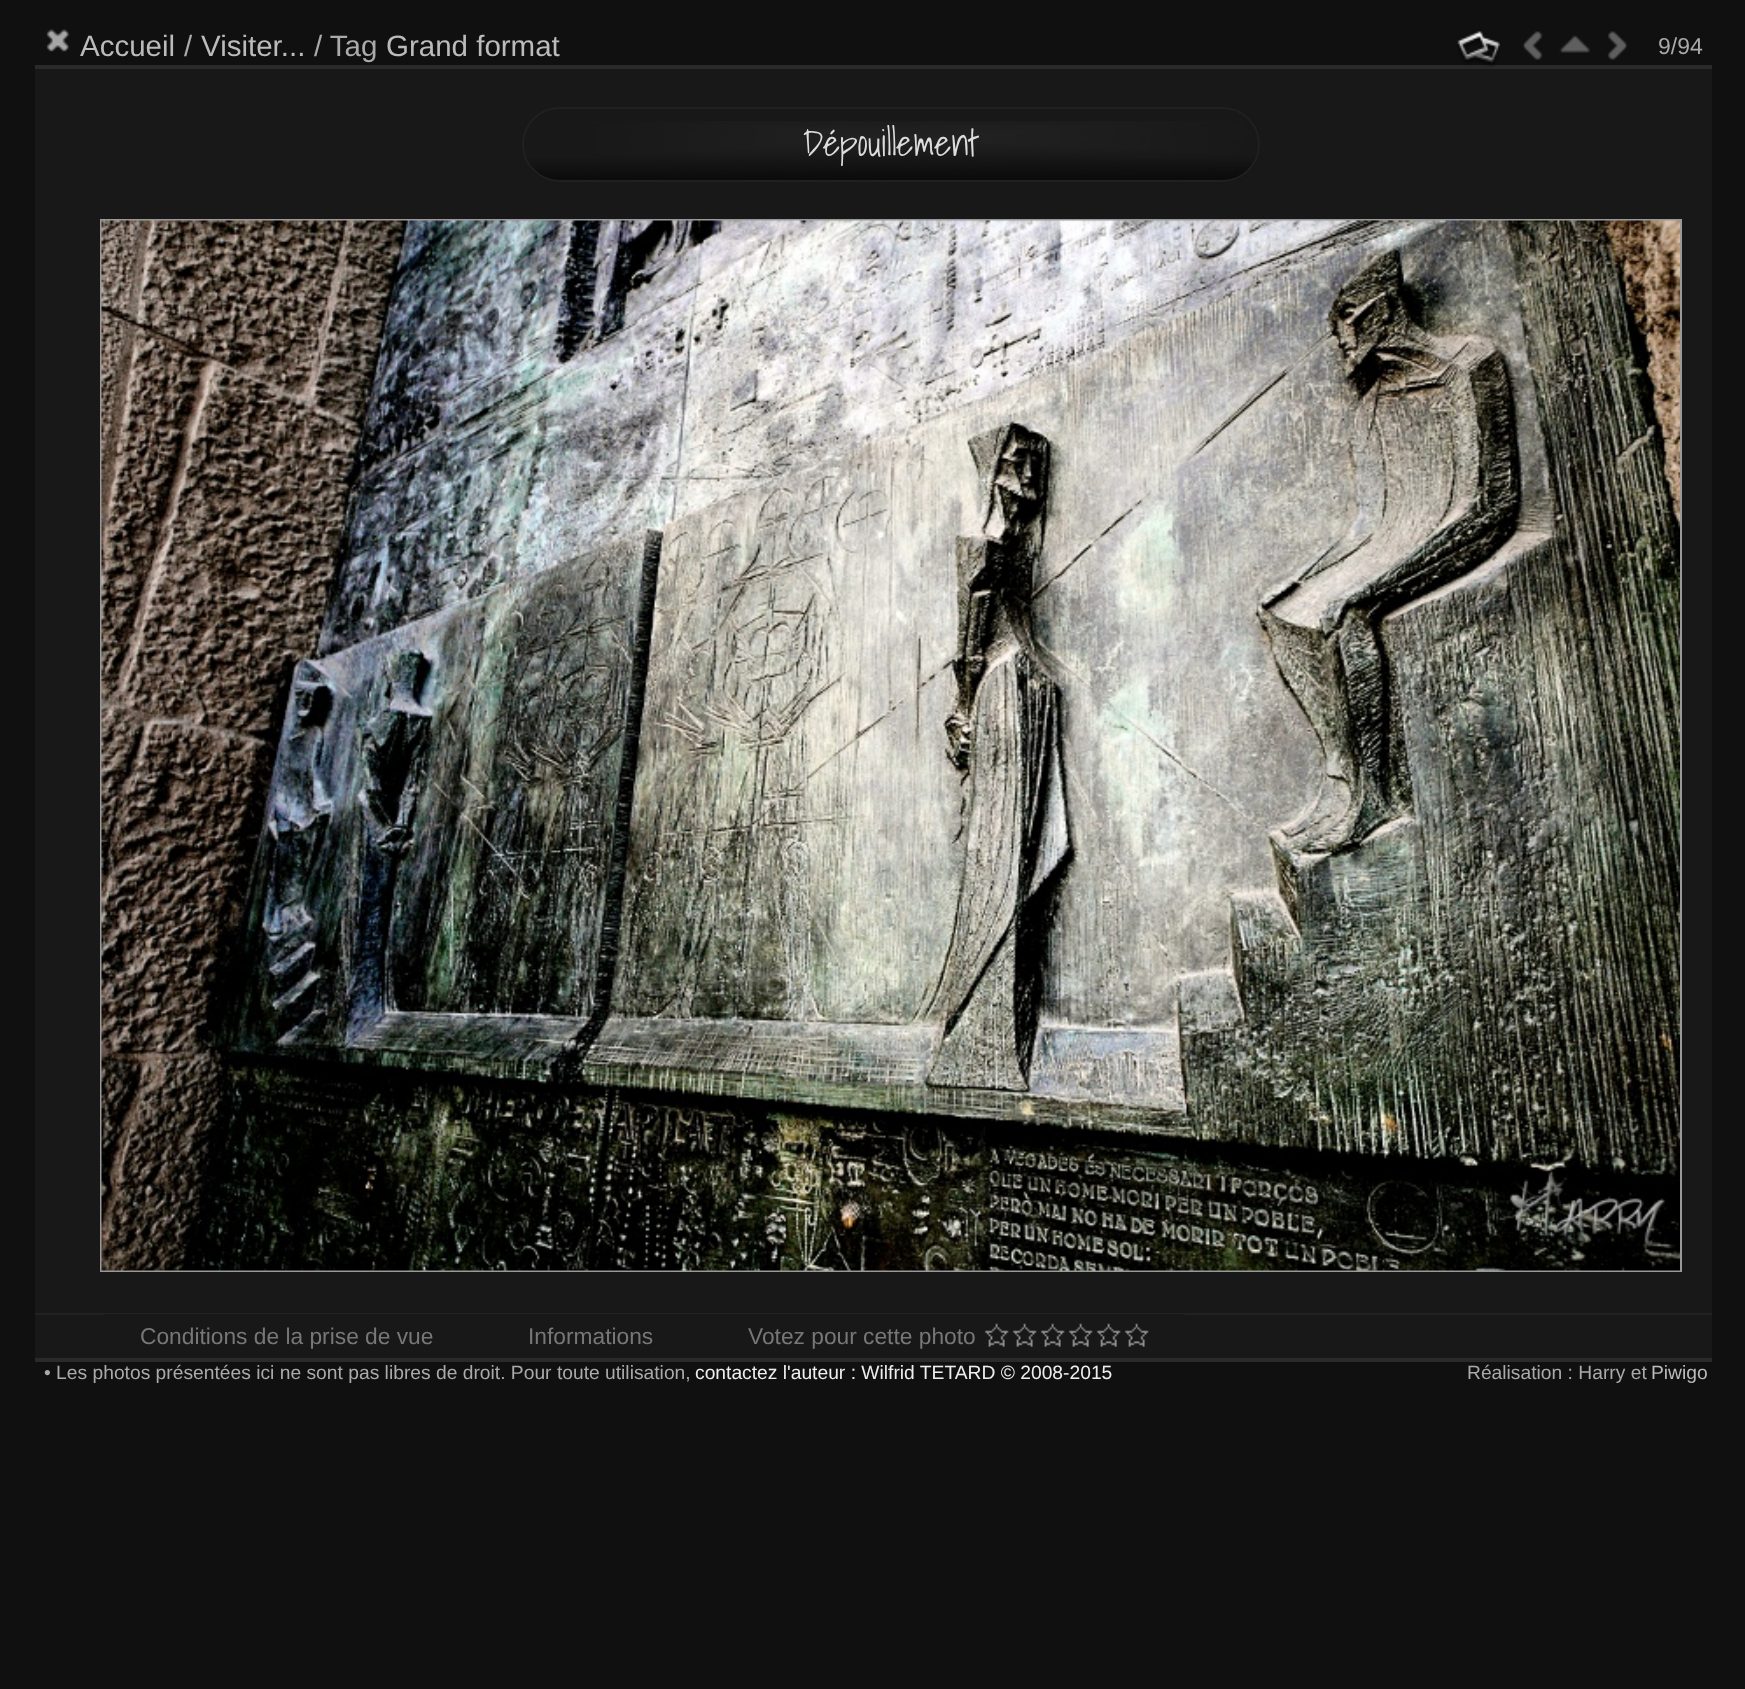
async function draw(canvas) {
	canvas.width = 1745;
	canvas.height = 1689;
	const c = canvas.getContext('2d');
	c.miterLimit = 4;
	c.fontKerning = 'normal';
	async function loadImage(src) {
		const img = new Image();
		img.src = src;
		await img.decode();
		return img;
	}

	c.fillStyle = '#101010';
	c.fillRect(0, 0, 1745, 1689);
	c.drawImage(await loadImage('img1.png'), 46, 29, 23, 23);
	c.font = '29.5px Liberation Sans';
	c.fillStyle = '#bbb';
	c.fillText('Accueil', 80, 56);
	c.fillStyle = '#aaa';
	c.fillText('/', 184, 56);
	c.fillStyle = '#bbb';
	c.fillText('Visiter...', 201, 56);
	c.fillStyle = '#aaa';
	c.fillText('/ Tag', 314, 56);
	c.fillStyle = '#bbb';
	c.fillText('Grand format', 386, 56);
	c.fillStyle = '#2a2a2a';
	c.fillRect(35, 65, 1677, 4);
	c.drawImage(await loadImage('img2.png'), 1457, 31, 43, 36);
	c.drawImage(await loadImage('img3.png'), 1522, 31, 21, 29);
	c.drawImage(await loadImage('img4.png'), 1559, 35, 32, 18);
	c.drawImage(await loadImage('img5.png'), 1607, 31, 21, 29);
	c.font = '23px Liberation Sans';
	c.fillStyle = '#aaa';
	c.fillText('9/94', 1658, 54);
	c.fillStyle = '#181818';
	c.fillRect(35, 69, 1677, 1289);
	c.fillStyle = '#2a2a2a';
	c.fillRect(35, 1358, 1677, 4);
	c.drawImage(await loadImage('img6.png'), 528, 121, 726, 60);
	c.beginPath();
	c.roundRect(523, 108, 736, 73, 36.5);
	c.strokeStyle = '#202020';
	c.lineWidth = 2;
	c.stroke();
	c.font = '300 36.5px Shadows Into Light';
	c.fillStyle = '#ddd';
	c.fillText('Dépouillement', 803, 156);
	c.strokeStyle = '#999';
	c.strokeRect(101, 220, 1580, 1051);
	c.drawImage(await loadImage('img7.png'), 101, 220, 1579, 1051);
	c.fillStyle = '#222';
	c.fillRect(35, 1313, 1677, 2);
	c.fillStyle = '#181818';
	c.fillRect(105, 1314, 1080, 1);
	c.font = '22.75px Liberation Sans';
	c.fillStyle = '#777';
	for (const [text, x, y] of [
		['Conditions de la prise de vue', 140, 1344],
		['Informations', 528, 1344],
		['Votez pour cette photo', 748, 1344],
	]) {
		c.fillText(text, x, y);
	}
	c.drawImage(await loadImage('img8.png'), 984, 1323, 25, 24);
	c.drawImage(await loadImage('img8.png'), 1012, 1323, 25, 24);
	c.drawImage(await loadImage('img8.png'), 1040, 1323, 25, 24);
	c.drawImage(await loadImage('img9.png'), 1068, 1323, 25, 24);
	c.drawImage(await loadImage('img9.png'), 1096, 1323, 25, 24);
	c.drawImage(await loadImage('img8.png'), 1124, 1323, 25, 24);
	c.font = '19.25px Liberation Sans';
	c.fillStyle = '#aaa';
	c.fillText('• Les photos présentées ici ne sont pas libres de droit. Pour toute utilisation,', 44, 1379);
	c.fillStyle = '#eee';
	c.fillText('contactez l\'auteur : Wilfrid TETARD © 2008-2015', 695, 1379);
	c.fillStyle = '#aaa';
	c.fillText('Réalisation : Harry et', 1467, 1379);
	c.fillStyle = '#bbb';
	c.fillText('Piwigo', 1651, 1379);
}

draw(document.querySelector('canvas'));
